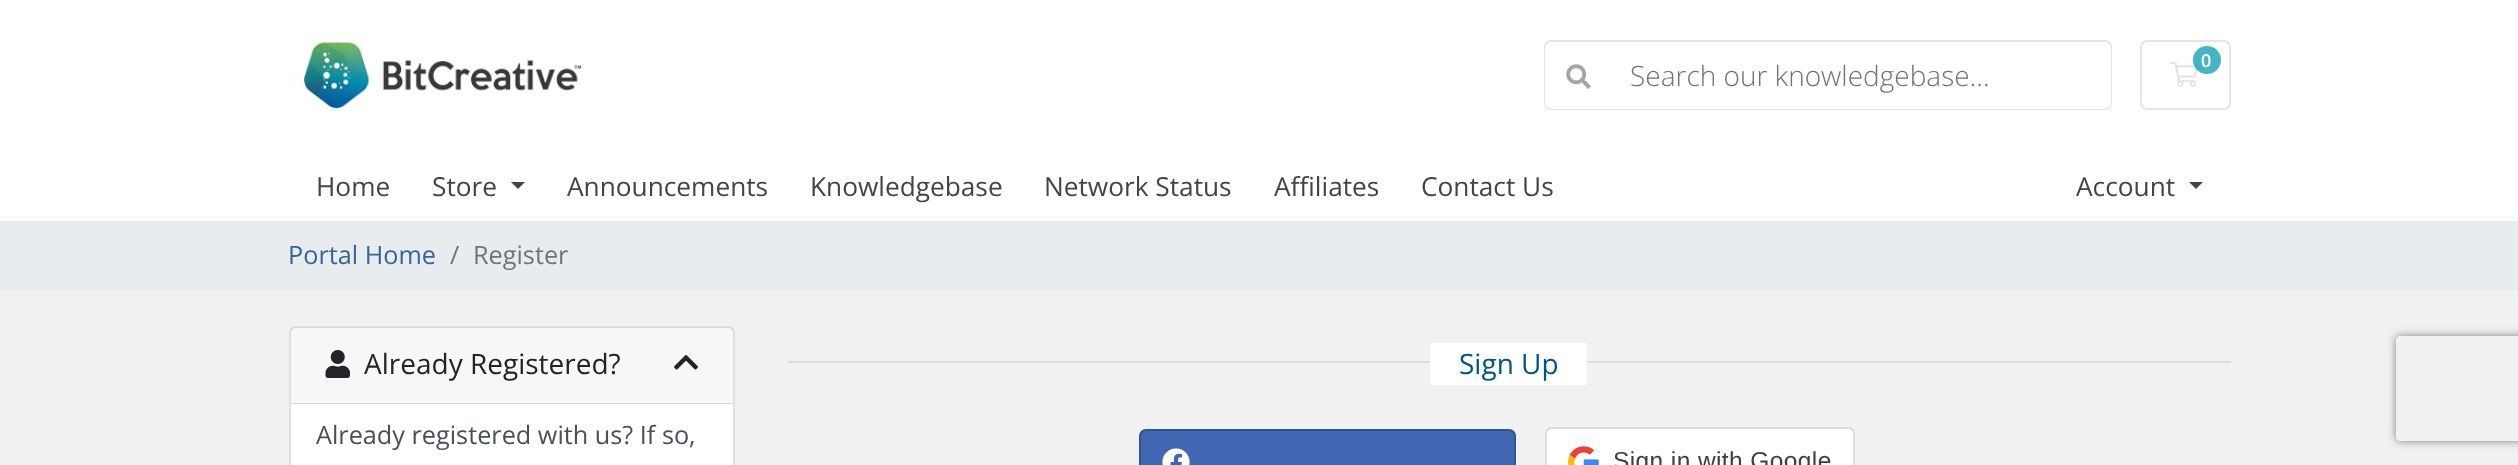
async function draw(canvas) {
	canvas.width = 2518;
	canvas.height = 465;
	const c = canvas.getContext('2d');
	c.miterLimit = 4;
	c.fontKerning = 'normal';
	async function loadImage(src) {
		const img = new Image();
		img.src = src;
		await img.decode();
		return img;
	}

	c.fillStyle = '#f1f1f1';
	c.fillRect(0, 0, 2518, 465);
	c.fillStyle = '#fff';
	c.fillRect(0, 0, 2518, 221);
	c.drawImage(await loadImage('img1.png'), 304, 42, 278, 67);
	c.beginPath();
	c.roundRect(2141, 41, 89, 68, 6);
	c.strokeStyle = '#e5e5e5';
	c.lineWidth = 2;
	c.stroke();
	c.drawImage(await loadImage('img2.png'), 2170, 62, 29, 25);
	c.fillStyle = '#17a2b8cc';
	c.beginPath();
	c.arc(2207, 60, 14, 0, 2 * Math.PI);
	c.fill();
	c.font = '600 18px Open Sans';
	c.fillStyle = '#fff';
	c.fillText('0', 2201, 67);
	c.beginPath();
	c.roundRect(1545, 41, 566, 68, 6);
	c.stroke();
	c.beginPath();
	c.roundRect(1610, 42, 501, 67, [0, 7, 7, 0]);
	c.fill();
	c.beginPath();
	c.roundRect(1545, 42, 67, 67, [7, 0, 0, 7]);
	c.fill();
	c.drawImage(await loadImage('img3.png'), 1566, 64, 25, 25);
	c.font = '300 28px Open Sans';
	c.fillStyle = '#6c757d';
	c.fillText('Search our knowledgebase...', 1630, 86);
	c.font = '26.25px Open Sans';
	c.fillStyle = '#444';
	c.fillText('Home', 316, 196);
	c.fillText('Store', 432, 196);
	c.beginPath();
	c.moveTo(511, 182);
	c.lineTo(525, 182);
	c.lineTo(518, 189);
	c.closePath();
	c.fill();
	for (const [text, x, y] of [
		['Announcements', 567, 196],
		['Knowledgebase', 810, 196],
		['Network Status', 1044, 196],
		['Affiliates', 1274, 196],
		['Contact Us', 1421, 196],
		['Account', 2076, 196],
	]) {
		c.fillText(text, x, y);
	}
	c.beginPath();
	c.moveTo(2189, 182);
	c.lineTo(2203, 182);
	c.lineTo(2196, 189);
	c.closePath();
	c.fill();
	c.fillStyle = '#e9ecef';
	c.fillRect(0, 221, 2518, 70);
	c.font = '25.25px Open Sans';
	c.fillStyle = '#369';
	c.fillText('Portal Home', 288, 264);
	c.fillStyle = '#6c757d';
	c.fillText('/', 450, 264);
	c.fillText('Register', 473, 264);
	c.fillStyle = '#fff';
	c.beginPath();
	c.roundRect(289, 326, 446, 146, 7);
	c.fill();
	c.beginPath();
	c.roundRect(290, 327, 444, 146, 6);
	c.strokeStyle = '#0000001f';
	c.stroke();
	c.fillStyle = '#00000008';
	c.fillRect(291, 327, 442, 77);
	c.fillStyle = '#0000001f';
	c.fillRect(291, 403, 442, 1);
	c.drawImage(await loadImage('img4.png'), 325, 350, 25, 28);
	c.font = '28px Open Sans';
	c.fillStyle = '#212529';
	c.fillText('Already Registered?', 364, 374);
	c.drawImage(await loadImage('img5.png'), 674, 355, 24, 15);
	c.font = '25.25px Open Sans';
	c.fillStyle = '#495057';
	c.fillText('Already registered with us? If so,', 316, 444);
	c.fillStyle = '#ddd';
	c.fillRect(788, 361, 1443, 2);
	c.fillStyle = '#fff';
	c.fillRect(1430, 343, 157, 42);
	c.font = '28px Open Sans';
	c.fillStyle = '#058';
	c.fillText('Sign Up', 1459, 374);
	c.fillStyle = '#4267b2';
	c.beginPath();
	c.roundRect(1139, 429, 377, 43, 7);
	c.fill();
	c.beginPath();
	c.roundRect(1140, 430, 375, 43, 6);
	c.strokeStyle = '#00000033';
	c.stroke();
	c.drawImage(await loadImage('img6.png'), 1162, 448, 28, 17);
	c.fillStyle = '#fff';
	c.beginPath();
	c.roundRect(1546, 428, 308, 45, 6);
	c.fill();
	c.strokeStyle = '#dadce0';
	c.stroke();
	c.drawImage(await loadImage('img7.png'), 1568, 446, 31, 19);
	c.letterSpacing = '0.4px';
	c.font = '24.5px Liberation Sans';
	c.fillStyle = '#3c4043';
	c.fillText('Sign in with Google', 1613, 469);
	c.save();
	c.beginPath();
	c.moveTo(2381, 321);
	c.lineTo(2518, 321);
	c.lineTo(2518, 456);
	c.lineTo(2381, 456);
	c.closePath();
	c.moveTo(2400, 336);
	c.lineTo(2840, 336);
	c.bezierCurveTo(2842, 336, 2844, 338, 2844, 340);
	c.lineTo(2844, 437);
	c.bezierCurveTo(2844, 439, 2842, 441, 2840, 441);
	c.lineTo(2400, 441);
	c.bezierCurveTo(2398, 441, 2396, 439, 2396, 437);
	c.lineTo(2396, 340);
	c.bezierCurveTo(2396, 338, 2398, 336, 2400, 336);
	c.closePath();
	c.clip('evenodd');
	c.fillStyle = '#808080';
	c.filter = 'blur(4.5px)';
	c.beginPath();
	c.roundRect(2396, 336, 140, 105, 4);
	c.fill();
	c.filter = 'none';
	c.restore();
}

draw(document.querySelector('canvas'));
